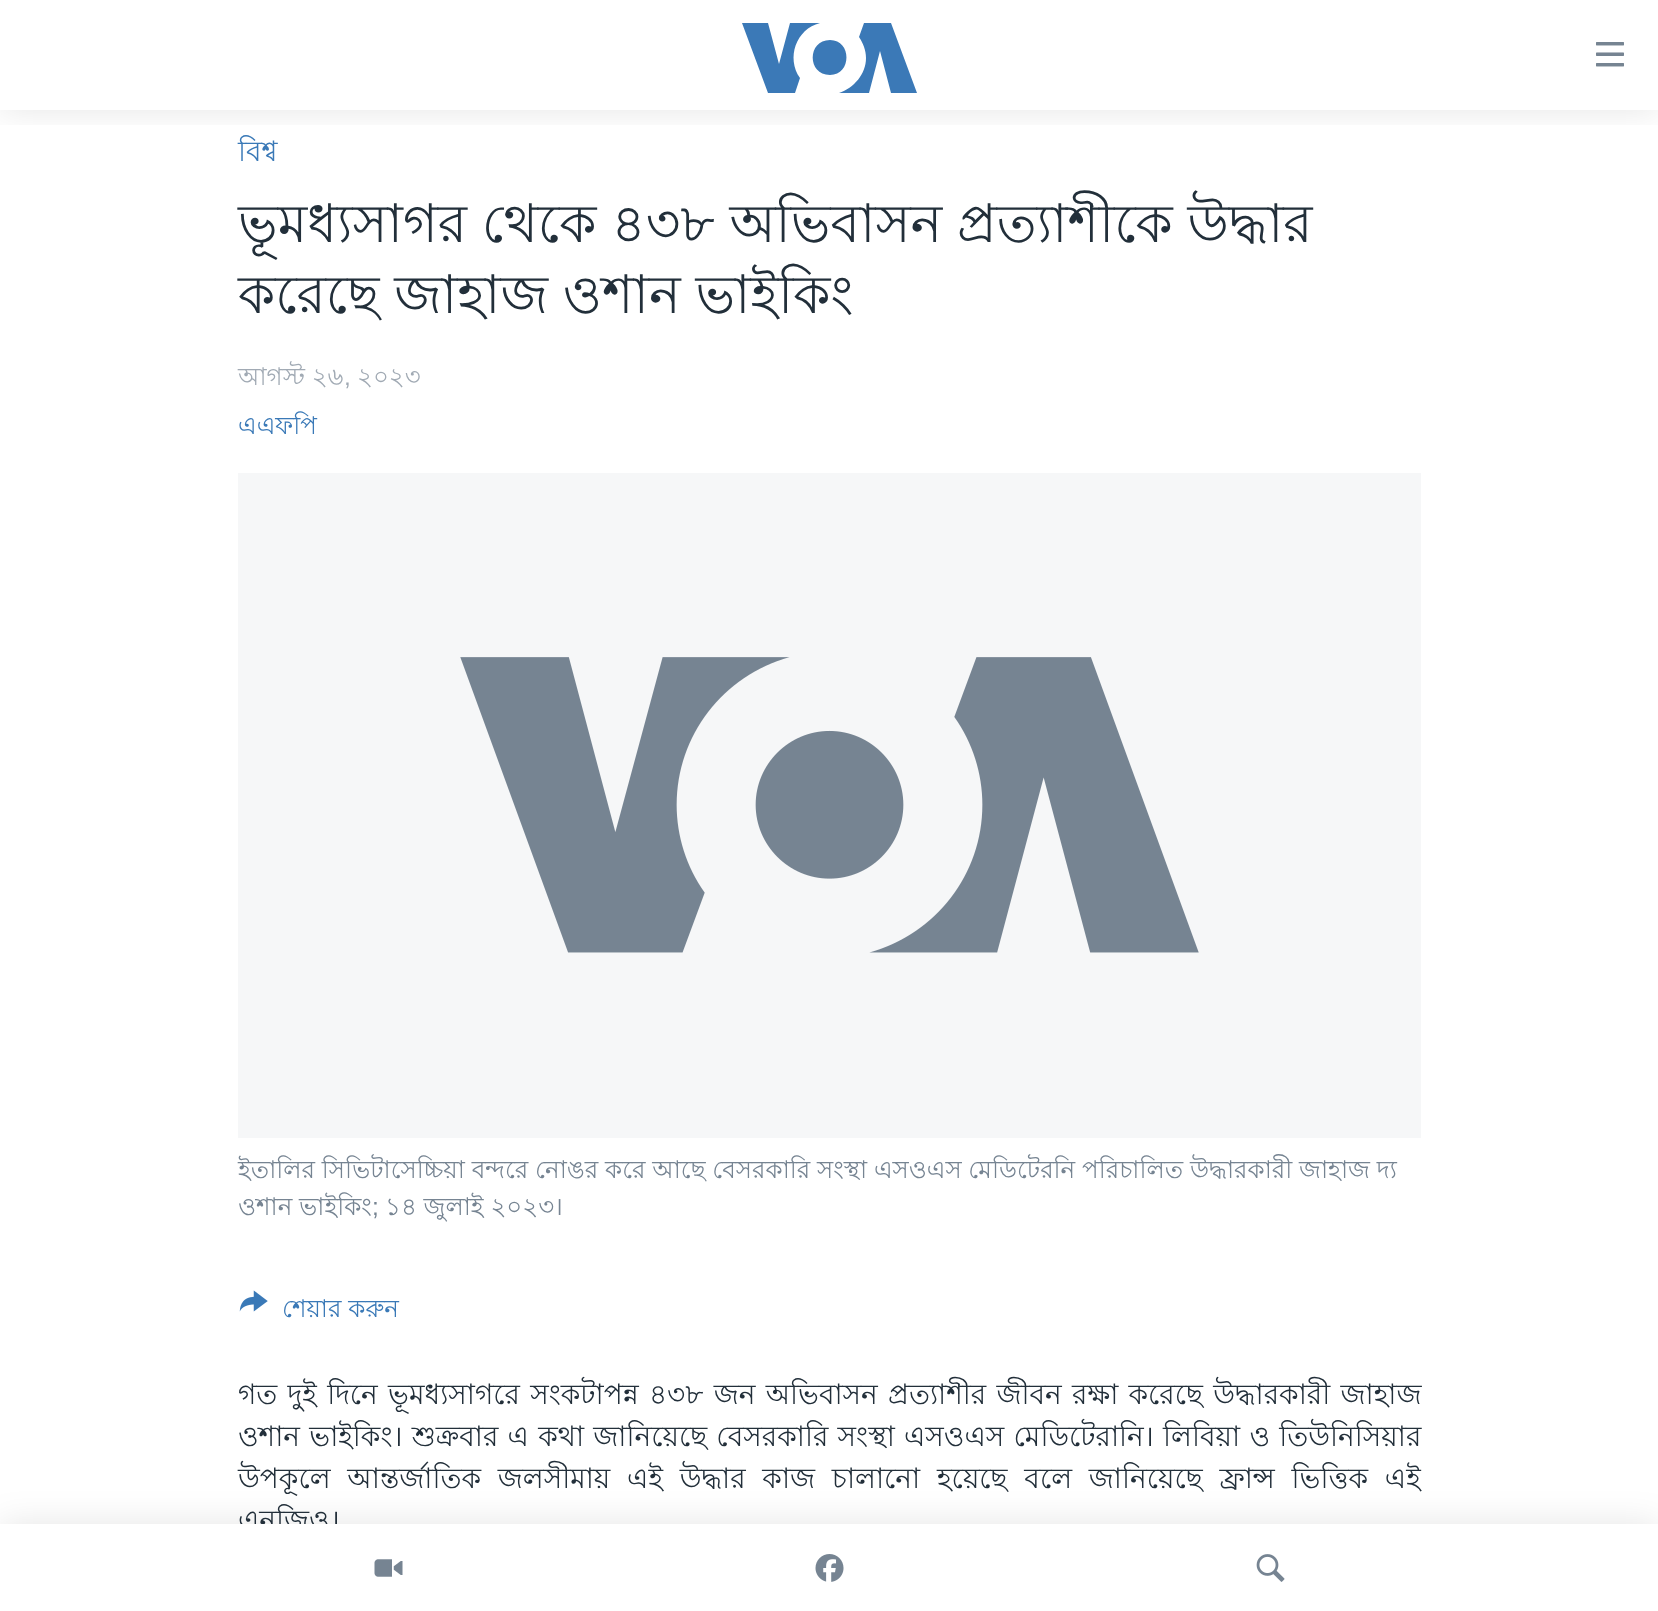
async function draw(canvas) {
	canvas.width = 1658;
	canvas.height = 1611;
	const c = canvas.getContext('2d');
	c.miterLimit = 4;
	c.fontKerning = 'normal';
	async function loadImage(src) {
		const img = new Image();
		img.src = src;
		await img.decode();
		return img;
	}

	c.fillStyle = '#fff';
	c.fillRect(0, 0, 1658, 1611);
	c.save();
	c.beginPath();
	c.rect(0, 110, 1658, 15);
	c.clip();
	c.fillStyle = '#0000001a';
	c.filter = 'blur(17.5px)';
	c.beginPath();
	c.rect(0, 0, 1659, 110);
	c.fill();
	c.filter = 'none';
	c.restore();
	c.fillStyle = '#3b79b7';
	c.beginPath();
	c.moveTo(800, 78);
	c.lineTo(795, 93);
	c.lineTo(768, 93);
	c.lineTo(742, 23);
	c.lineTo(768, 23);
	c.lineTo(779, 64);
	c.lineTo(790, 23);
	c.lineTo(820, 23);
	c.bezierCurveTo(796, 29, 786, 58, 800, 78);
	c.closePath();
	c.moveTo(830, 40);
	c.bezierCurveTo(807, 40, 807, 75, 830, 75);
	c.bezierCurveTo(852, 75, 852, 40, 830, 40);
	c.closePath();
	c.moveTo(866, 58);
	c.bezierCurveTo(866, 74, 854, 88, 839, 93);
	c.lineTo(869, 93);
	c.lineTo(880, 51);
	c.lineTo(891, 93);
	c.lineTo(917, 93);
	c.lineTo(891, 23);
	c.lineTo(864, 23);
	c.lineTo(859, 37);
	c.bezierCurveTo(863, 43, 866, 50, 866, 58);
	c.closePath();
	c.fill();
	c.drawImage(await loadImage('img1.png'), 1596, 42, 28, 25);
	c.fillStyle = '#0000001a';
	c.filter = 'blur(17.5px)';
	c.beginPath();
	c.rect(0, 1524, 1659, 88);
	c.fill();
	c.filter = 'none';
	c.font = '28px Lohit Bengali';
	c.fillStyle = '#222f3a';
	c.fillText('এনজিও।', 238, 1530);
	c.fillStyle = '#fff';
	c.fillRect(0, 1524, 1658, 87);
	c.drawImage(await loadImage('img2.png'), 374, 1559, 29, 18);
	c.drawImage(await loadImage('img3.png'), 815, 1554, 29, 28);
	c.drawImage(await loadImage('img4.png'), 1256, 1554, 29, 28);
	c.fillStyle = '#3a79b7';
	c.fillText('বিশ্ব', 238, 161);
	c.font = '53.2px Lohit Bengali';
	c.fillStyle = '#222f3a';
	c.fillText('ভূমধ্যসাগর থেকে ৪৩৮ অভিবাসন প্রত্যাশীকে উদ্ধার', 238, 242);
	c.fillText('করেছে জাহাজ ওশান ভাইকিং', 238, 313);
	c.font = '24.5px Lohit Bengali';
	c.fillStyle = '#a1aab4';
	c.fillText('আগস্ট ২৬', 238, 385);
	c.font = '24.5px Liberation Sans';
	c.fillText(',', 344, 385);
	c.font = '24.5px Lohit Bengali';
	c.fillText('২০২৩', 357, 385);
	c.fillStyle = '#3a79b7';
	c.fillText('এএফপি', 238, 434);
	c.fillStyle = '#f6f7f8';
	c.fillRect(238, 473, 1183, 665);
	c.drawImage(await loadImage('img5.png'), 460, 657, 739, 296);
	c.fillStyle = '#768492';
	c.fillText('ইতালির সিভিটাসেচ্চিয়া বন্দরে নোঙর করে আছে বেসরকারি সংস্থা এসওএস মেডিটেরনি পরিচালিত উদ্ধারকারী জাহাজ দ্য', 238, 1178);
	c.fillText('ওশান ভাইকিং', 238, 1215);
	c.font = '24.5px Liberation Sans';
	c.fillText(';', 372, 1215);
	c.font = '24.5px Lohit Bengali';
	c.fillText('১৪ জুলাই ২০২৩।', 385, 1215);
	c.drawImage(await loadImage('img6.png'), 239, 1290, 29, 22);
	c.fillStyle = '#3a79b7';
	c.fillText('শেয়ার করুন', 282, 1317);
	c.wordSpacing = '2.5px';
	c.font = '28px Lohit Bengali';
	c.fillStyle = '#222f3a';
	c.fillText('গত দুই দিনে ভূমধ্যসাগরে সংকটাপন্ন ৪৩৮ জন অভিবাসন প্রত্যাশীর জীবন রক্ষা করেছে উদ্ধারকারী জাহাজ', 238, 1404);
	c.wordSpacing = '1.5px';
	c.fillText('ওশান ভাইকিং। শুক্রবার এ কথা জানিয়েছে বেসরকারি সংস্থা এসওএস মেডিটেরানি। লিবিয়া ও তিউনিসিয়ার', 238, 1446);
	c.wordSpacing = '9px';
	c.fillText('উপকূলে আন্তর্জাতিক জলসীমায় এই উদ্ধার কাজ চালানো হয়েছে বলে জানিয়েছে ফ্রান্স ভিত্তিক এই', 238, 1488);
}

draw(document.querySelector('canvas'));
